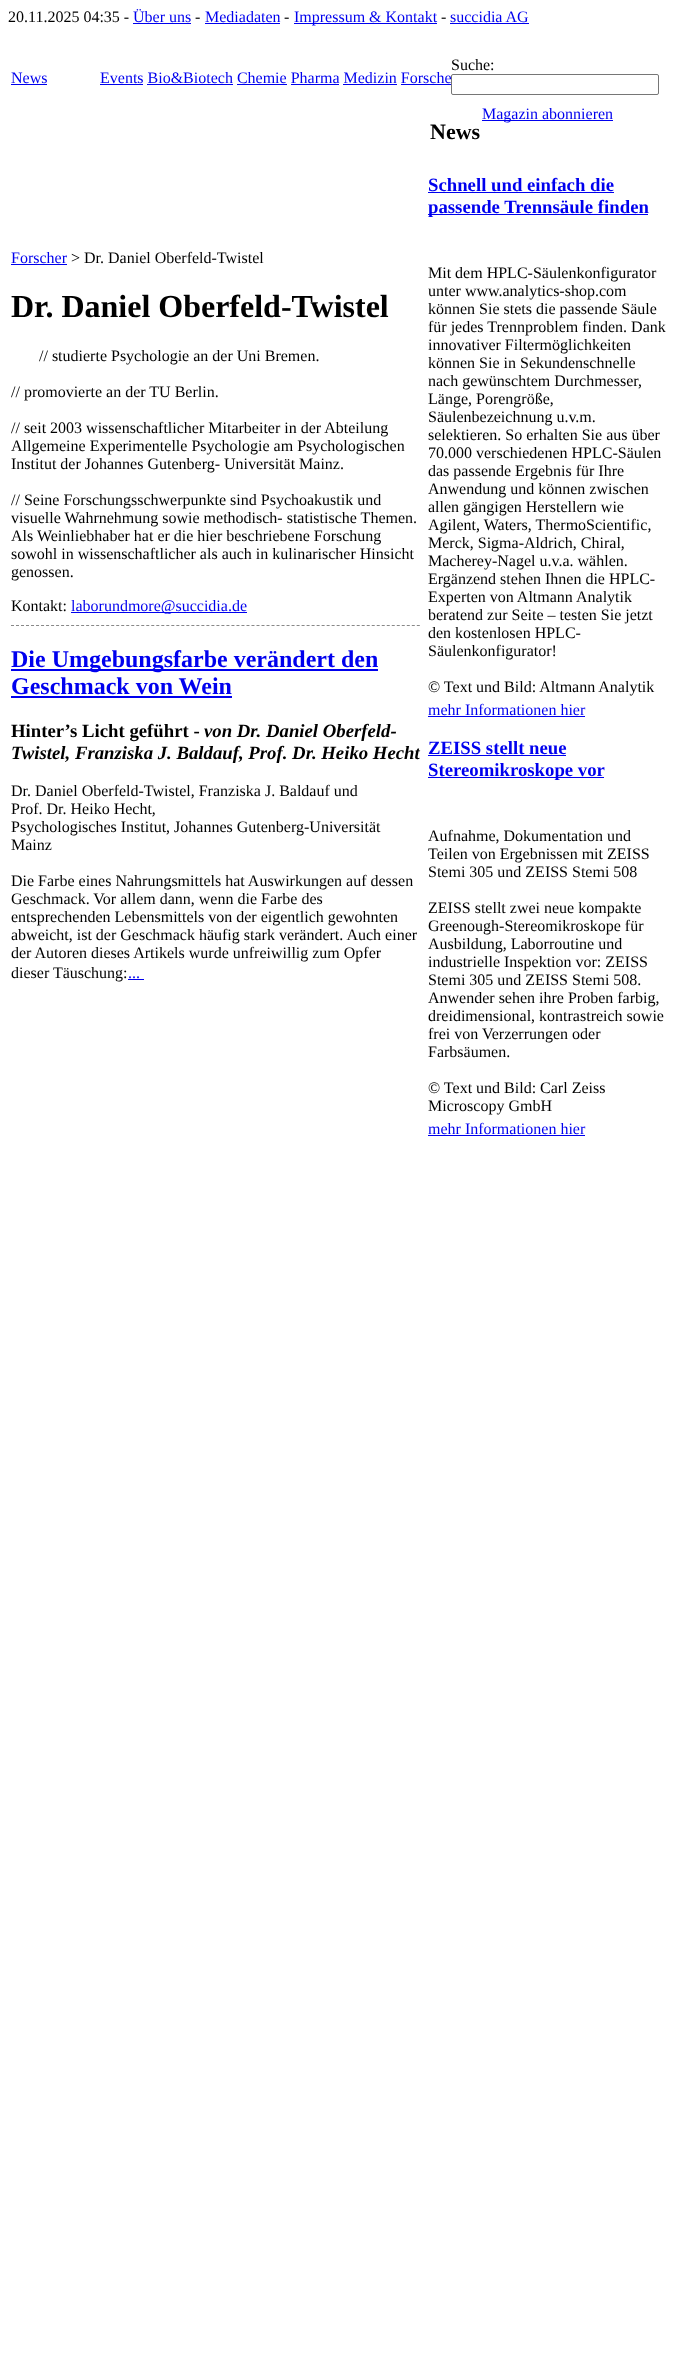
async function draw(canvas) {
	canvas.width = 679;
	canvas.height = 2377;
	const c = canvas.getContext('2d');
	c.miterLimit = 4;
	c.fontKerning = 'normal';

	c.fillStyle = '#fff';
	c.fillRect(0, 0, 679, 2377);
	c.font = '16px Liberation Serif';
	c.fillStyle = '#000';
	c.fillText('20.11.2025 04:35 -', 8, 22);
	c.fillStyle = '#00e';
	c.fillText('Über uns', 133, 22);
	c.fillRect(133, 23, 58, 1);
	c.fillStyle = '#000';
	c.fillText('-', 195, 22);
	c.fillStyle = '#00e';
	c.fillText('Mediadaten', 205, 22);
	c.fillRect(205, 23, 75, 1);
	c.fillStyle = '#000';
	c.fillText('-', 284, 22);
	c.fillStyle = '#00e';
	c.fillRect(294, 23, 143, 1);
	c.fillText('Impressum & Kontakt', 294, 22);
	c.fillStyle = '#000';
	c.fillText('-', 441, 22);
	c.fillStyle = '#00e';
	c.fillText('succidia AG', 450, 22);
	c.fillRect(450, 23, 79, 1);
	c.fillText('News', 11, 83);
	c.fillRect(11, 84, 36, 1);
	c.fillText('Events Bio&Biotech Chemie Pharma Medizin Forsche', 100, 83);
	for (const [x, y, w, h, color] of [
		[100, 84, 43, 1, '#00e'],
		[147, 84, 86, 1, '#00e'],
		[237, 84, 50, 1, '#00e'],
		[291, 84, 48, 1, '#00e'],
		[343, 84, 54, 1, '#00e'],
		[401, 84, 56, 1, '#00e'],
	]) {
		c.fillStyle = color;
		c.fillRect(x, y, w, h);
	}
	c.fillStyle = '#000';
	c.fillText('Suche:', 451, 70);
	c.fillStyle = '#fff';
	c.beginPath();
	c.roundRect(451.5, 74.5, 207, 20, 1.5);
	c.fill();
	c.strokeStyle = '#767676';
	c.stroke();
	c.fillStyle = '#00e';
	c.fillRect(482, 120, 131, 1);
	c.fillText('Magazin abonnieren', 482, 119);
	c.fillText('Forscher', 11, 263);
	c.fillRect(11, 264, 56, 1);
	c.fillStyle = '#000';
	c.fillText('> Dr. Daniel Oberfeld-Twistel', 71, 263);
	c.beginPath();
	c.moveTo(11, 625.5);
	c.lineTo(420, 625.5);
	c.strokeStyle = '#888';
	c.setLineDash([3, 2.01]);
	c.stroke();
	c.font = 'bold 32px Liberation Serif';
	c.fillText('Dr. Daniel Oberfeld-Twistel', 11, 317);
	c.font = '16px Liberation Serif';
	for (const [text, x, y] of [
		['// studierte Psychologie an der Uni Bremen.', 39, 361],
		['// promovierte an der TU Berlin.', 11, 397],
		['// seit 2003 wissenschaftlicher Mitarbeiter in der Abteilung', 11, 433],
		['Allgemeine Experimentelle Psychologie am Psychologischen', 11, 451],
		['Institut der Johannes Gutenberg- Universität Mainz.', 11, 469],
		['// Seine Forschungsschwerpunkte sind Psychoakustik und', 11, 505],
		['visuelle Wahrnehmung sowie methodisch- statistische Themen.', 11, 523],
		['Als Weinliebhaber hat er die hier beschriebene Forschung', 11, 541],
		['sowohl in wissenschaftlicher als auch in kulinarischer Hinsicht', 11, 559],
		['genossen.', 11, 577],
		['Kontakt:', 11, 611],
	]) {
		c.fillText(text, x, y);
	}
	c.fillStyle = '#00e';
	c.fillRect(71, 612, 176, 1);
	c.fillText('laborundmore@succidia.de', 71, 611);
	c.fillRect(11, 669, 367, 2);
	c.font = 'bold 24px Liberation Serif';
	c.fillText('Die Umgebungsfarbe verändert den', 11, 667);
	c.fillText('Geschmack von Wein', 11, 694);
	c.fillRect(11, 696, 221, 2);
	c.font = 'bold 18.75px Liberation Serif';
	c.fillStyle = '#000';
	c.fillText('Hinter’s Licht geführt -', 11, 737);
	c.font = 'italic bold 18.75px Liberation Serif';
	c.fillText('von Dr. Daniel Oberfeld-', 204, 737);
	c.fillText('Twistel, Franziska J. Baldauf, Prof. Dr. Heiko Hecht', 11, 759);
	c.font = '16px Liberation Serif';
	for (const [text, x, y] of [
		['Dr. Daniel Oberfeld-Twistel, Franziska J. Baldauf und', 11, 796],
		['Prof. Dr. Heiko Hecht,', 11, 814],
		['Psychologisches Institut, Johannes Gutenberg-Universität', 11, 832],
		['Mainz', 11, 850],
		['Die Farbe eines Nahrungsmittels hat Auswirkungen auf dessen', 11, 886],
		['Geschmack. Vor allem dann, wenn die Farbe des', 11, 904],
		['entsprechenden Lebensmittels von der eigentlich gewohnten', 11, 922],
		['abweicht, ist der Geschmack häufig stark verändert. Auch einer', 11, 940],
		['der Autoren dieses Artikels wurde unfreiwillig zum Opfer', 11, 958],
		['dieser Täuschung:', 11, 978],
	]) {
		c.fillText(text, x, y);
	}
	c.fillStyle = '#00e';
	c.fillText('...', 128, 978);
	c.fillRect(128, 979, 16, 1);
	c.font = 'bold 22px Liberation Serif';
	c.fillStyle = '#000';
	c.fillText('News', 430, 139);
	c.font = 'bold 18.75px Liberation Serif';
	c.fillStyle = '#00e';
	c.fillText('Schnell und einfach die', 428, 191);
	c.fillRect(428, 192, 186, 1);
	c.fillRect(428, 214, 220, 1);
	c.fillText('passende Trennsäule finden', 428, 213);
	c.font = '16px Liberation Serif';
	c.fillStyle = '#000';
	for (const [text, x, y] of [
		['Mit dem HPLC-Säulenkonfigurator', 428, 278],
		['unter www.analytics-shop.com', 428, 296],
		['können Sie stets die passende Säule', 428, 314],
		['für jedes Trennproblem finden. Dank', 428, 332],
		['innovativer Filtermöglichkeiten', 428, 350],
		['können Sie in Sekundenschnelle', 428, 368],
		['nach gewünschtem Durchmesser,', 428, 386],
		['Länge, Porengröße,', 428, 404],
		['Säulenbezeichnung u.v.m.', 428, 422],
		['selektieren. So erhalten Sie aus über', 428, 440],
		['70.000 verschiedenen HPLC-Säulen', 428, 458],
		['das passende Ergebnis für Ihre', 428, 476],
		['Anwendung und können zwischen', 428, 494],
		['allen gängigen Herstellern wie', 428, 512],
		['Agilent, Waters, ThermoScientific,', 428, 530],
		['Merck, Sigma-Aldrich, Chiral,', 428, 548],
		['Macherey-Nagel u.v.a. wählen.', 428, 566],
		['Ergänzend stehen Ihnen die HPLC-', 428, 584],
		['Experten von Altmann Analytik', 428, 602],
		['beratend zur Seite – testen Sie jetzt', 428, 620],
		['den kostenlosen HPLC-', 428, 638],
		['Säulenkonfigurator!', 428, 656],
		['© Text und Bild: Altmann Analytik', 428, 692],
	]) {
		c.fillText(text, x, y);
	}
	c.fillStyle = '#00e';
	c.fillText('mehr Informationen hier', 428, 715);
	c.fillRect(428, 716, 157, 1);
	c.font = 'bold 18.75px Liberation Serif';
	c.fillText('ZEISS stellt neue', 428, 754);
	c.fillRect(428, 755, 138, 1);
	c.fillRect(428, 777, 176, 1);
	c.fillText('Stereomikroskope vor', 428, 776);
	c.font = '16px Liberation Serif';
	c.fillStyle = '#000';
	for (const [text, x, y] of [
		['Aufnahme, Dokumentation und', 428, 841],
		['Teilen von Ergebnissen mit ZEISS', 428, 859],
		['Stemi 305 und ZEISS Stemi 508', 428, 877],
		['ZEISS stellt zwei neue kompakte', 428, 913],
		['Greenough-Stereomikroskope für', 428, 931],
		['Ausbildung, Laborroutine und', 428, 949],
		['industrielle Inspektion vor: ZEISS', 428, 967],
		['Stemi 305 und ZEISS Stemi 508.', 428, 985],
		['Anwender sehen ihre Proben farbig,', 428, 1003],
		['dreidimensional, kontrastreich sowie', 428, 1021],
		['frei von Verzerrungen oder', 428, 1039],
		['Farbsäumen.', 428, 1057],
		['© Text und Bild: Carl Zeiss', 428, 1093],
		['Microscopy GmbH', 428, 1111],
	]) {
		c.fillText(text, x, y);
	}
	c.fillStyle = '#00e';
	c.fillText('mehr Informationen hier', 428, 1134);
	c.fillRect(428, 1135, 157, 1);
}

draw(document.querySelector('canvas'));
